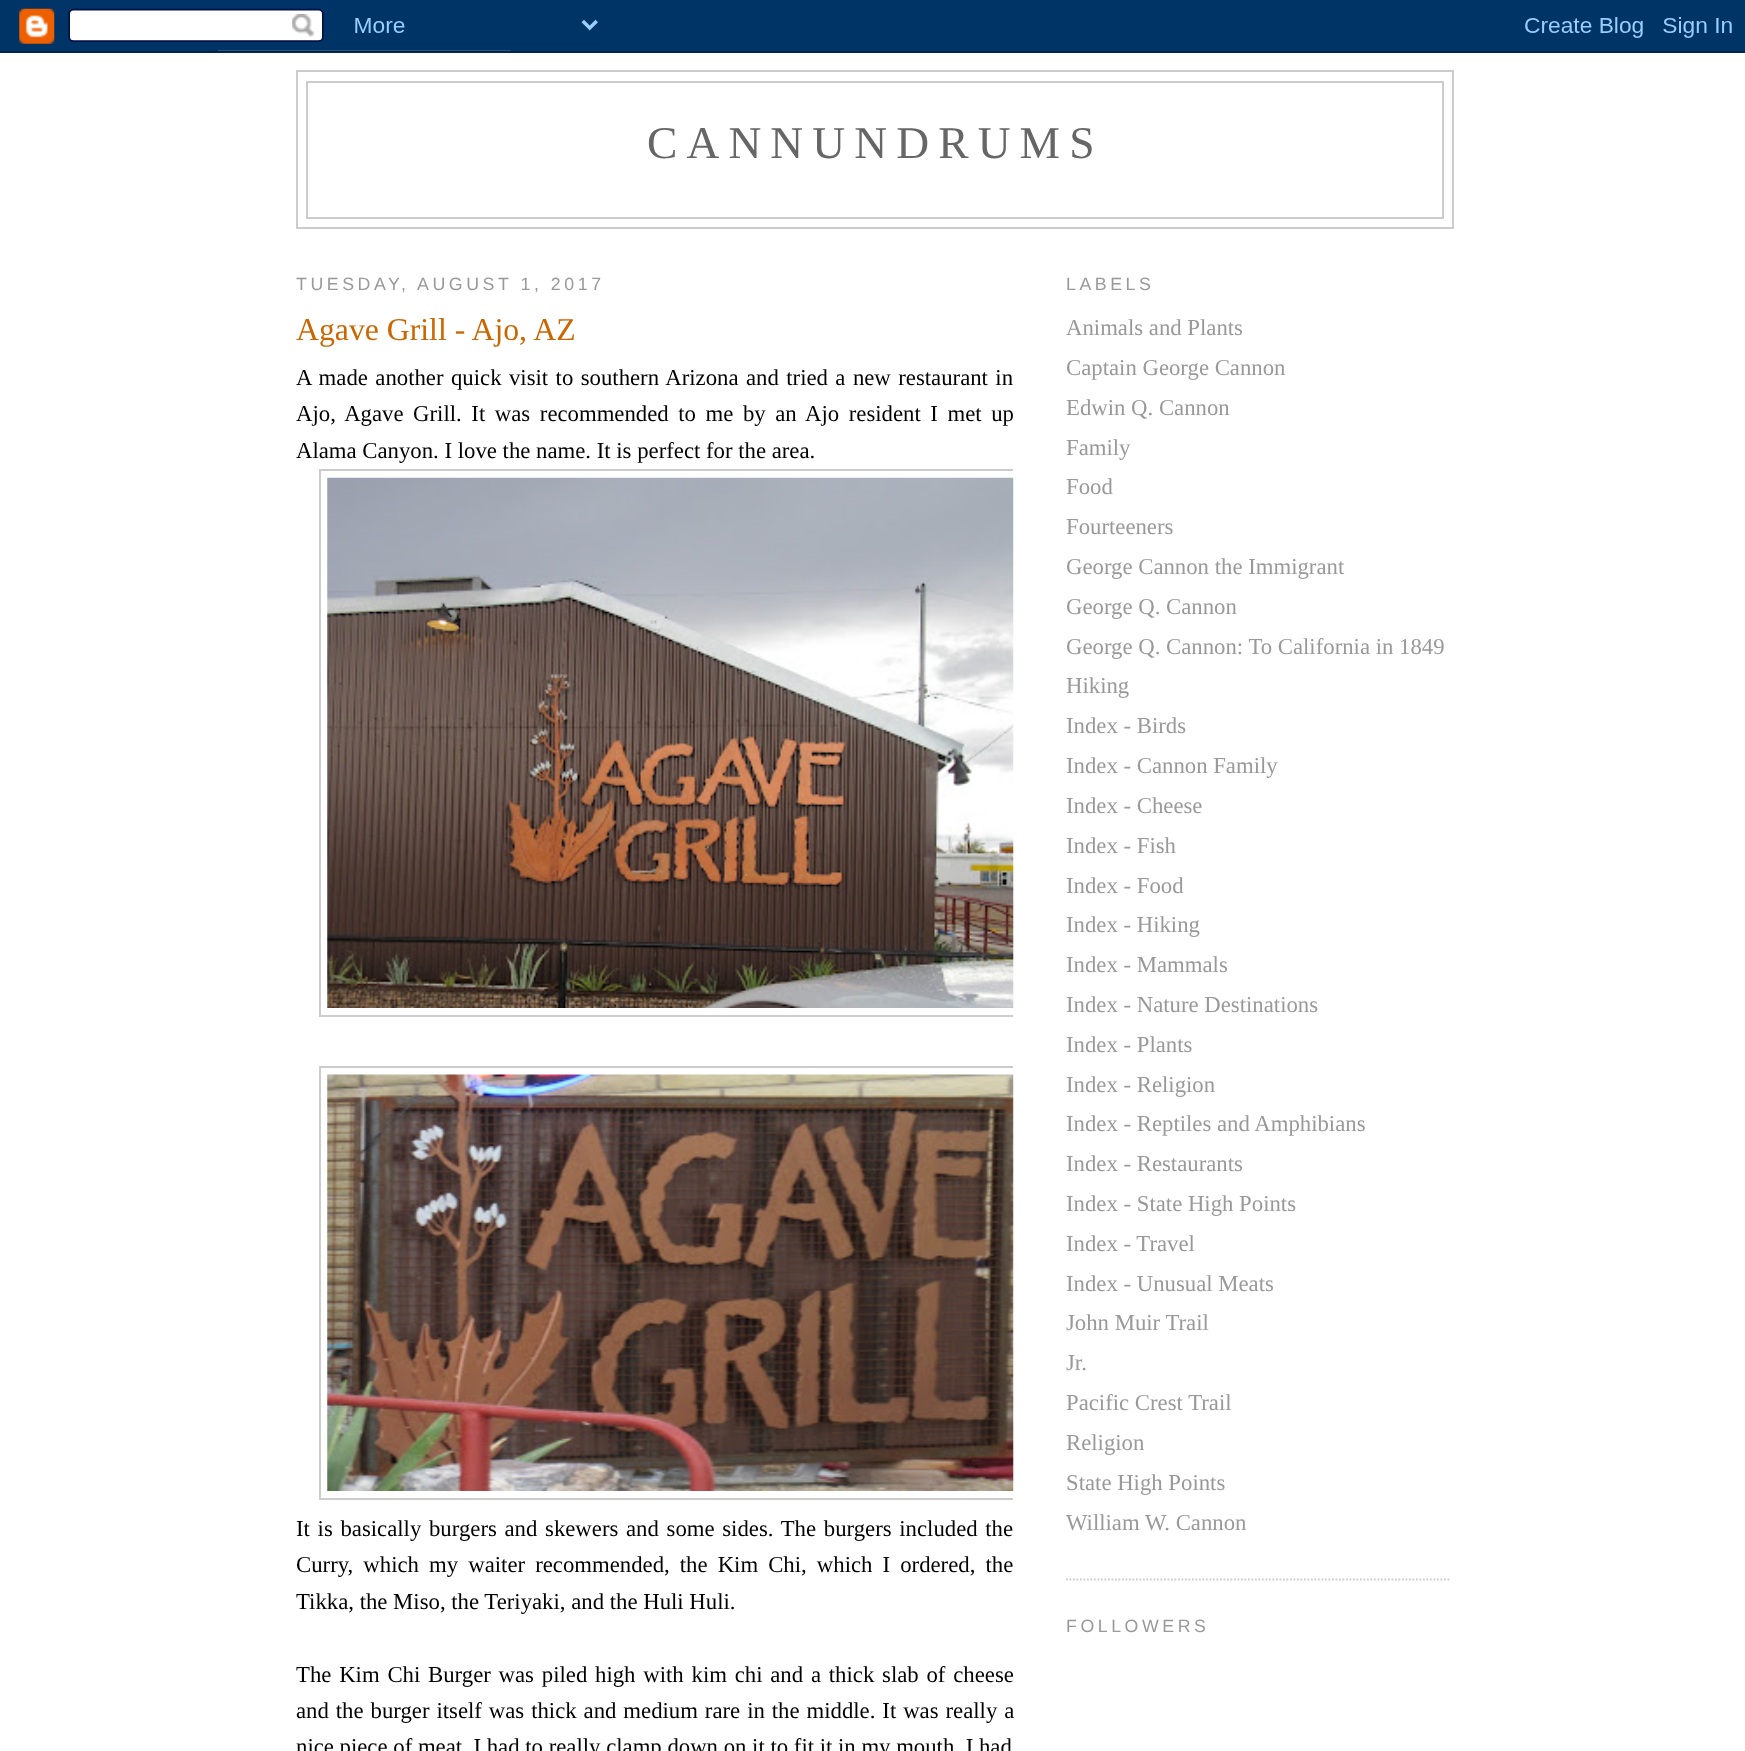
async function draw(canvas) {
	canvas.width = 1745;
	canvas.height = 1751;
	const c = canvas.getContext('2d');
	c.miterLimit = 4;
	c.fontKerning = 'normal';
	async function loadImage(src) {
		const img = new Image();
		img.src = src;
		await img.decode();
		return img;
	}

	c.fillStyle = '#fff';
	c.fillRect(0, 0, 1745, 1751);
	c.drawImage(await loadImage('img1.png'), 0, 0, 1745, 53);
	c.strokeStyle = '#ccc';
	c.lineWidth = 2;
	c.strokeRect(297, 71, 1156, 157);
	c.strokeRect(307, 82, 1136, 136);
	c.letterSpacing = '9.1px';
	c.font = '45.5px Liberation Serif';
	c.fillStyle = '#666';
	c.fillText('CANNUNDRUMS', 647, 158);
	c.letterSpacing = '3.55px';
	c.font = '17.75px Liberation Sans';
	c.fillStyle = '#999';
	c.fillText('TUESDAY, AUGUST 1, 2017', 296, 290);
	c.letterSpacing = '0px';
	c.font = '31.75px Liberation Serif';
	c.fillStyle = '#c60';
	c.fillText('Agave Grill - Ajo, AZ', 296, 340);
	c.wordSpacing = '1.75px';
	c.font = '22.75px Liberation Serif';
	c.fillStyle = '#000';
	c.fillText('A made another quick visit to southern Arizona and tried a new restaurant in', 296, 385);
	c.wordSpacing = '3.9px';
	c.fillText('Ajo, Agave Grill. It was recommended to me by an Ajo resident I met up', 296, 421);
	c.wordSpacing = '0px';
	c.fillText('Alama Canyon. I love the name. It is perfect for the area.', 296, 458);
	c.save();
	c.beginPath();
	c.rect(296, 247, 717, 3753);
	c.clip();
	c.strokeRect(320, 470, 715, 546);
	c.restore();
	c.drawImage(await loadImage('img2.png'), 327, 477, 687, 531);
	c.save();
	c.beginPath();
	c.rect(296, 247, 717, 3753);
	c.clip();
	c.strokeRect(320, 1067, 715, 432);
	c.restore();
	c.drawImage(await loadImage('img3.png'), 327, 1074, 687, 417);
	c.wordSpacing = '2px';
	c.fillText('It is basically burgers and skewers and some sides. The burgers included the', 296, 1536);
	c.wordSpacing = '4.4px';
	c.fillText('Curry, which my waiter recommended, the Kim Chi, which I ordered, the', 296, 1572);
	c.wordSpacing = '0px';
	c.fillText('Tikka, the Miso, the Teriyaki, and the Huli Huli.', 296, 1609);
	c.wordSpacing = '2.1px';
	c.fillText('The Kim Chi Burger was piled high with kim chi and a thick slab of cheese', 296, 1682);
	c.wordSpacing = '1.25px';
	c.fillText('and the burger itself was thick and medium rare in the middle. It was really a', 296, 1718);
	c.wordSpacing = '0px';
	c.fillText('nice piece of meat. I had to really clamp down on it to fit it in my mouth. I had', 296, 1754);
	c.beginPath();
	c.moveTo(1066, 1579.5);
	c.lineTo(1451, 1579.5);
	c.lineWidth = 1.8;
	c.setLineDash([1.75, 1.75]);
	c.stroke();
	c.letterSpacing = '3.55px';
	c.font = '17.75px Liberation Sans';
	c.fillStyle = '#999';
	c.fillText('LABELS', 1066, 290);
	c.letterSpacing = '0px';
	c.font = '22.75px Liberation Serif';
	for (const [text, x, y] of [
		['Animals and Plants', 1066, 335],
		['Captain George Cannon', 1066, 375],
		['Edwin Q. Cannon', 1066, 415],
		['Family', 1066, 455],
		['Food', 1066, 494],
		['Fourteeners', 1066, 534],
		['George Cannon the Immigrant', 1066, 574],
		['George Q. Cannon', 1066, 614],
		['George Q. Cannon: To California in 1849', 1066, 654],
		['Hiking', 1066, 693],
		['Index - Birds', 1066, 733],
		['Index - Cannon Family', 1066, 773],
		['Index - Cheese', 1066, 813],
		['Index - Fish', 1066, 853],
		['Index - Food', 1066, 893],
		['Index - Hiking', 1066, 932],
		['Index - Mammals', 1066, 972],
		['Index - Nature Destinations', 1066, 1012],
		['Index - Plants', 1066, 1052],
		['Index - Religion', 1066, 1092],
		['Index - Reptiles and Amphibians', 1066, 1131],
		['Index - Restaurants', 1066, 1171],
		['Index - State High Points', 1066, 1211],
		['Index - Travel', 1066, 1251],
		['Index - Unusual Meats', 1066, 1291],
		['John Muir Trail', 1066, 1330],
		['Jr.', 1066, 1370],
		['Pacific Crest Trail', 1066, 1410],
		['Religion', 1066, 1450],
		['State High Points', 1066, 1490],
		['William W. Cannon', 1066, 1530],
	]) {
		c.fillText(text, x, y);
	}
	c.letterSpacing = '3.55px';
	c.font = '17.75px Liberation Sans';
	c.fillText('FOLLOWERS', 1066, 1632);
}

draw(document.querySelector('canvas'));
